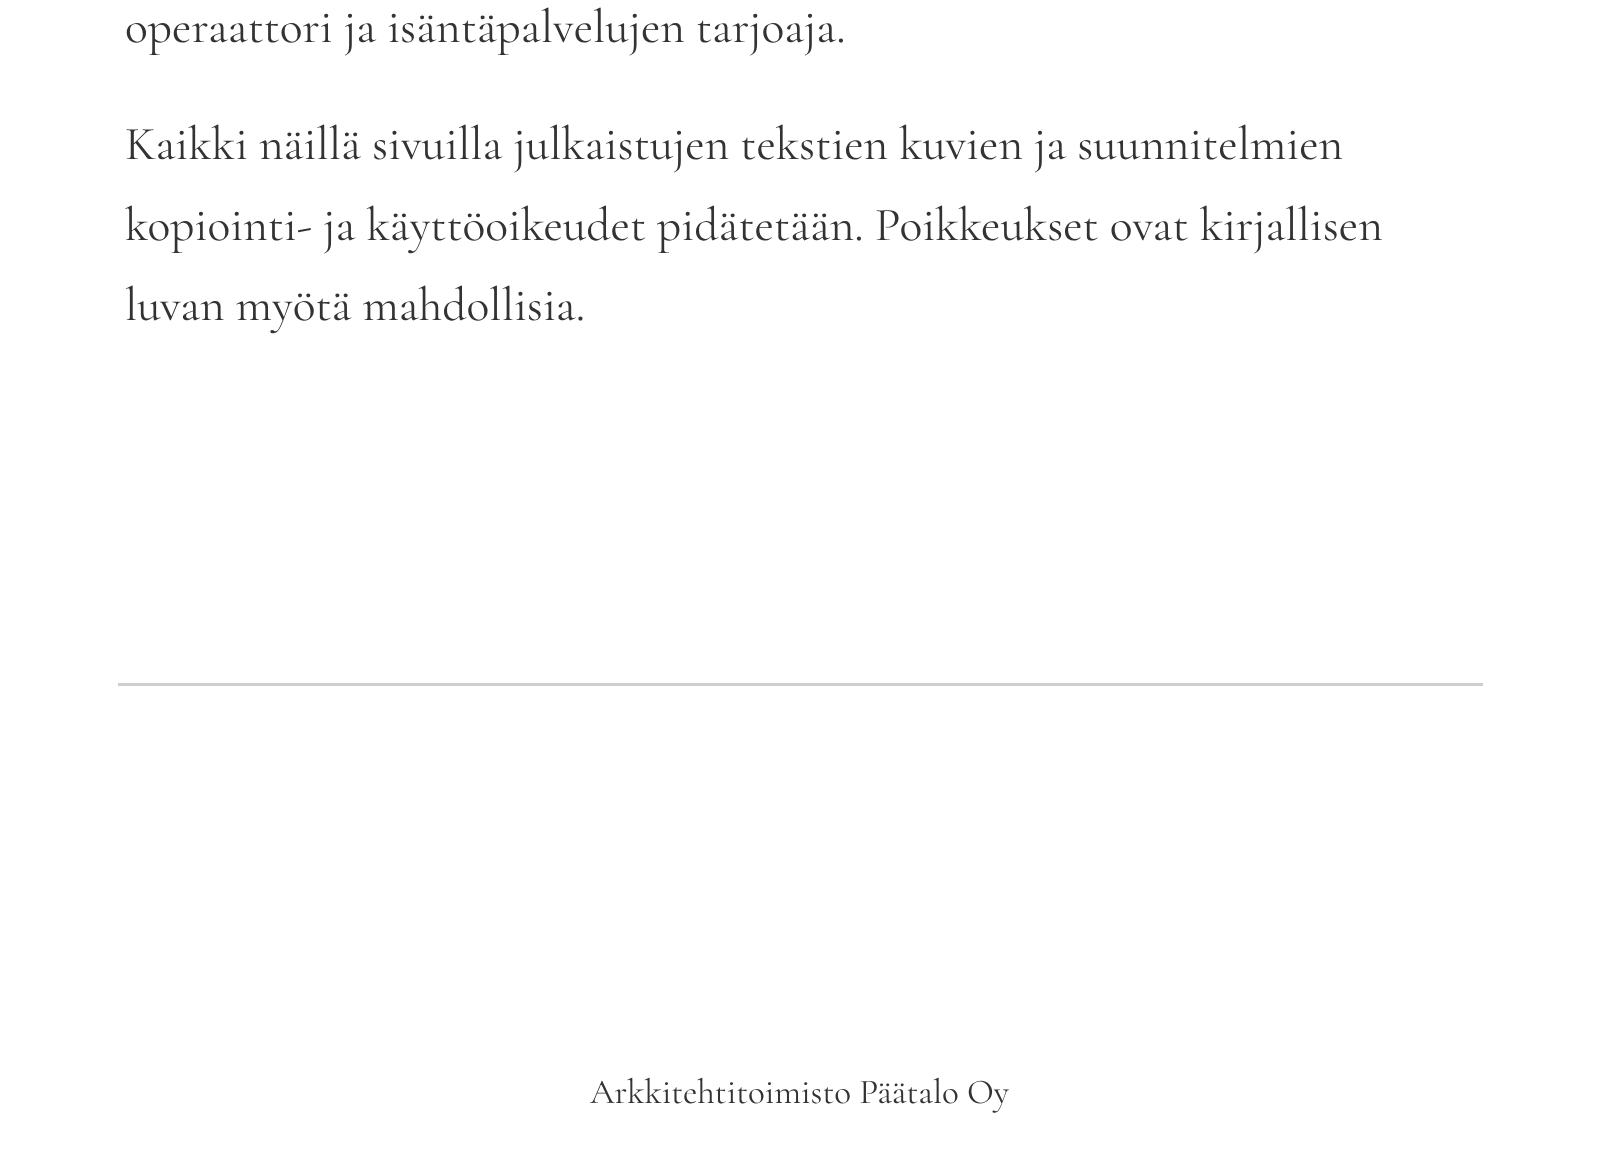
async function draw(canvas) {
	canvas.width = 1600;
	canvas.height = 1150;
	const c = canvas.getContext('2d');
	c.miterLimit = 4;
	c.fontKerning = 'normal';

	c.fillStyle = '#fff';
	c.fillRect(0, 0, 1600, 1150);
	c.font = '47.5px Cormorant Garamond';
	c.fillStyle = '#333';
	for (const [text, x, y] of [
		['operaattori ja isäntäpalvelujen tarjoaja.', 125, 42],
		['Kaikki näillä sivuilla julkaistujen tekstien kuvien ja suunnitelmien', 125, 159],
		['kopiointi- ja käyttöoikeudet pidätetään. Poikkeukset ovat kirjallisen', 125, 240],
		['luvan myötä mahdollisia.', 125, 320],
	]) {
		c.fillText(text, x, y);
	}
	c.fillStyle = '#cecece';
	c.fillRect(118, 683, 1365, 3);
	c.font = '35px Cormorant Garamond';
	c.fillStyle = '#333';
	c.fillText('Arkkitehtitoimisto Päätalo Oy', 590, 1103);
}

draw(document.querySelector('canvas'));
